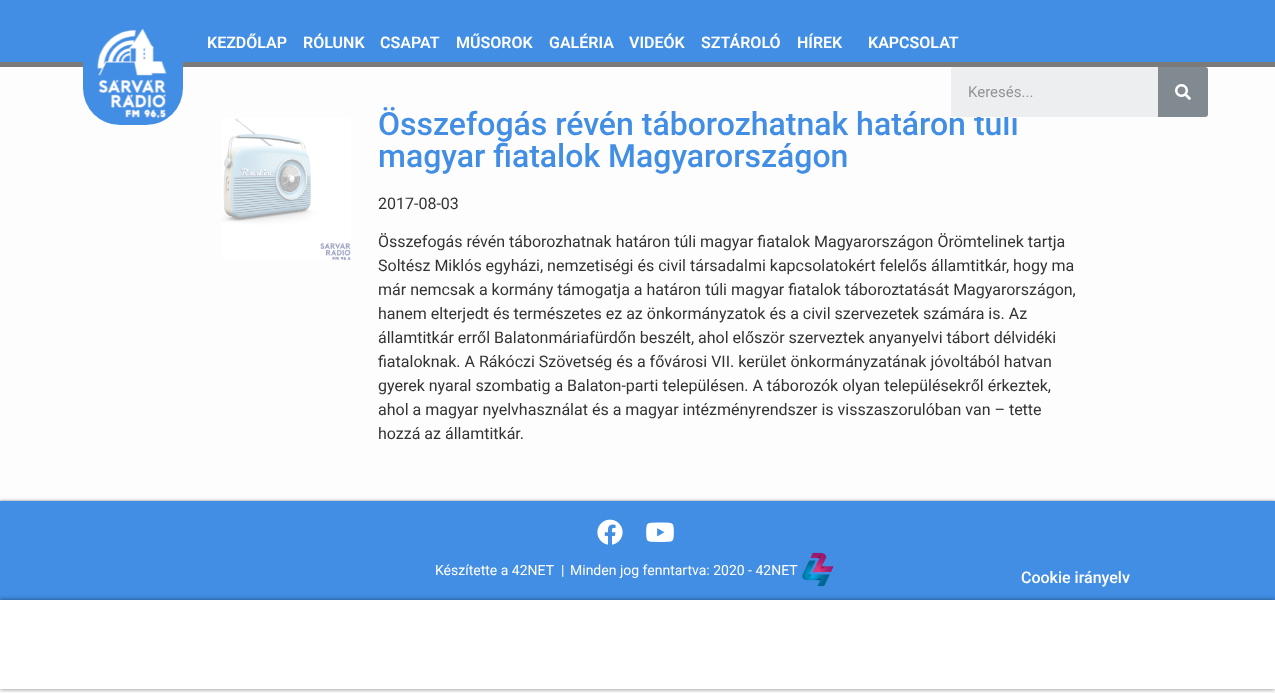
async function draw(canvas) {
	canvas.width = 1275;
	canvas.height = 693;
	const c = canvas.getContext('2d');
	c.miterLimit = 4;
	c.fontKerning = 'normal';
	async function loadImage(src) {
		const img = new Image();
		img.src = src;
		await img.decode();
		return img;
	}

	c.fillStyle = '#fdfdfd';
	c.fillRect(0, 0, 1275, 693);
	c.fillStyle = '#428ee5';
	c.fillRect(0, 0, 1275, 62);
	c.fillStyle = '#7a7a7a';
	c.fillRect(0, 62, 1275, 5);
	c.fillStyle = '#428ee5';
	c.beginPath();
	c.roundRect(83, 25, 100, 100, [0, 0, 37, 37]);
	c.fill();
	c.drawImage(await loadImage('img1.png'), 97, 28, 70, 91);
	c.font = '600 16px Roboto';
	c.fillStyle = '#fff';
	for (const [text, x, y] of [
		['KEZDŐLAP', 207, 48],
		['RÓLUNK', 303, 48],
		['CSAPAT', 380, 48],
		['MŰSOROK', 456, 48],
		['GALÉRIA', 549, 48],
		['VIDEÓK', 629, 48],
		['SZTÁROLÓ', 701, 48],
		['HÍREK', 797, 48],
		['KAPCSOLAT', 868, 48],
	]) {
		c.fillText(text, x, y);
	}
	c.font = '500 32px Roboto';
	c.fillStyle = '#428ee5';
	c.fillText('Összefogás révén táborozhatnak határon túli', 378, 135);
	c.fillStyle = '#eceeef';
	c.beginPath();
	c.roundRect(951, 67, 257, 50, 3);
	c.fill();
	c.font = '15px Roboto';
	c.fillStyle = '#919597';
	c.fillText('Keresés...', 968, 97);
	c.fillStyle = '#818a91';
	c.beginPath();
	c.roundRect(1158, 67, 50, 50, [0, 3, 3, 0]);
	c.fill();
	c.drawImage(await loadImage('img2.png'), 1175, 84, 16, 16);
	c.drawImage(await loadImage('img3.png'), 222, 118, 129, 142);
	c.font = '500 32px Roboto';
	c.fillStyle = '#428ee5';
	c.fillText('magyar fiatalok Magyarországon', 378, 167);
	c.font = '16px Roboto';
	c.fillStyle = '#333';
	for (const [text, x, y] of [
		['2017-08-03', 378, 209],
		['Összefogás révén táborozhatnak határon túli magyar fiatalok Magyarországon Örömtelinek tartja', 378, 247],
		['Soltész Miklós egyházi, nemzetiségi és civil társadalmi kapcsolatokért felelős államtitkár, hogy ma', 378, 271],
		['már nemcsak a kormány támogatja a határon túli magyar fiatalok táboroztatását Magyarországon,', 378, 295],
		['hanem elterjedt és természetes ez az önkormányzatok és a civil szervezetek számára is. Az', 378, 319],
		['államtitkár erről Balatonmáriafürdőn beszélt, ahol először szerveztek anyanyelvi tábort délvidéki', 378, 343],
		['fiataloknak. A Rákóczi Szövetség és a fővárosi VII. kerület önkormányzatának jóvoltából hatvan', 378, 367],
		['gyerek nyaral szombatig a Balaton-parti településen. A táborozók olyan településekről érkeztek,', 378, 391],
		['ahol a magyar nyelvhasználat és a magyar intézményrendszer is visszaszorulóban van – tette', 378, 415],
		['hozzá az államtitkár.', 378, 439],
	]) {
		c.fillText(text, x, y);
	}
	c.fillStyle = '#00000080';
	c.filter = 'blur(1.5px)';
	c.beginPath();
	c.rect(0, 501, 1275, 99);
	c.fill();
	c.filter = 'none';
	c.fillStyle = '#428ee5';
	c.fillRect(0, 501, 1275, 99);
	c.drawImage(await loadImage('img4.png'), 597, 519, 26, 26);
	c.drawImage(await loadImage('img5.png'), 646, 522, 28, 20);
	c.font = '14px Roboto';
	c.fillStyle = '#fff';
	for (const [text, x, y] of [
		['Készítette a 42NET', 435, 575],
		['|', 561, 575],
		['Minden jog fenntartva: 2020 - 42NET', 570, 575],
	]) {
		c.fillText(text, x, y);
	}
	c.drawImage(await loadImage('img6.png'), 802, 552, 32, 35);
	c.font = '500 16px Roboto';
	c.fillText('Cookie irányelv', 1021, 583);
	c.fillStyle = '#00000080';
	c.filter = 'blur(2.5px)';
	c.beginPath();
	c.rect(0, 600, 1275, 89);
	c.fill();
	c.filter = 'none';
	c.fillStyle = '#fff';
	c.fillRect(0, 600, 1275, 89);
}

draw(document.querySelector('canvas'));
